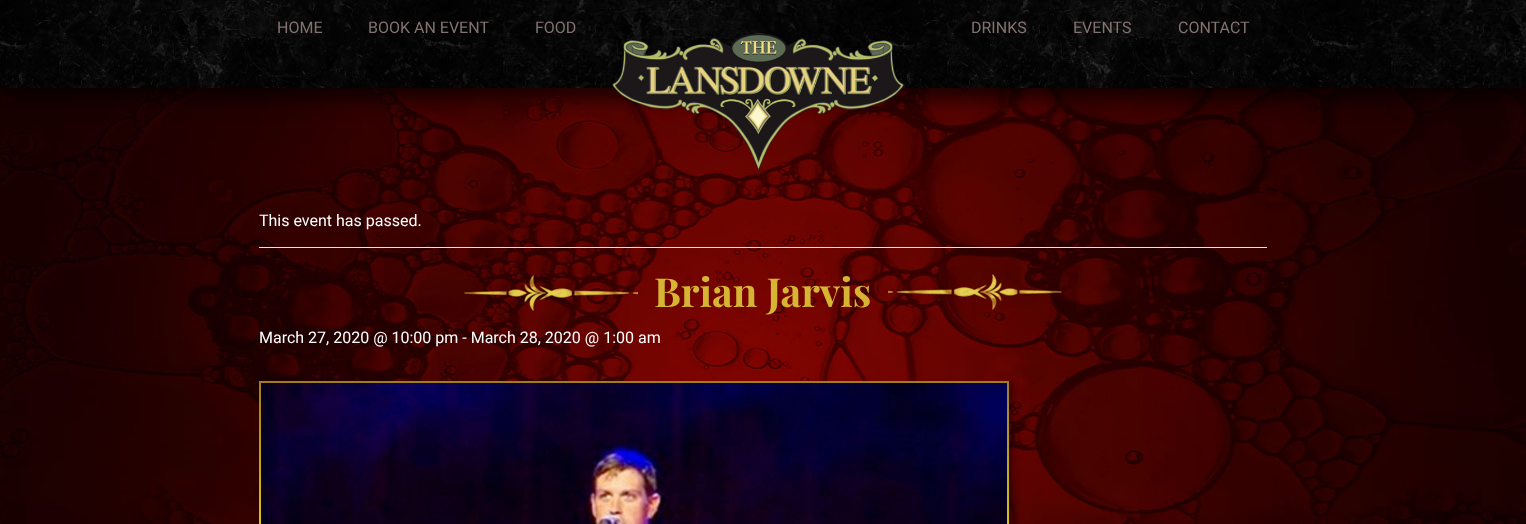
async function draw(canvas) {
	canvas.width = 1526;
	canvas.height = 524;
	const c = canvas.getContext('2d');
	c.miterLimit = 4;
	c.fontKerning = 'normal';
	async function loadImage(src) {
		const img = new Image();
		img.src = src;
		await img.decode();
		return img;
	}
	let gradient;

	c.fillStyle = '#fff';
	c.fillRect(0, 0, 1526, 524);
	c.drawImage(await loadImage('img1.png'), 0, 88, 1526, 436);
	c.fillStyle = '#000000b3';
	c.filter = 'blur(10px)';
	c.beginPath();
	c.rect(0, 10, 1526, 88);
	c.fill();
	c.filter = 'none';
	c.drawImage(await loadImage('img2.png'), 0, 0, 1526, 88);
	c.font = '16px Roboto';
	c.fillStyle = '#837271';
	for (const [text, x, y] of [
		['HOME', 277, 33],
		['BOOK AN EVENT', 368, 33],
		['FOOD', 535, 33],
		['DRINKS', 971, 33],
		['EVENTS', 1073, 33],
		['CONTACT', 1178, 33],
	]) {
		c.fillText(text, x, y);
	}
	c.drawImage(await loadImage('img3.png'), 612, 33, 292, 138);
	c.fillStyle = '#e4e4e4';
	c.fillRect(259, 247, 1008, 1);
	c.fillStyle = '#fff';
	c.fillText('This event has passed.', 259, 226);
	c.drawImage(await loadImage('img4.png'), 464, 275, 175, 36);
	c.font = 'bold 40px Playfair Display';
	c.fillStyle = '#d6b434';
	c.fillText('Brian Jarvis', 654, 307);
	c.drawImage(await loadImage('img5.png'), 887, 274, 175, 36);
	c.font = '16px Roboto';
	c.fillStyle = '#fff';
	c.fillText('March 27, 2020 @ 10:00 pm - March 28, 2020 @ 1:00 am', 259, 343);
	c.save();
	c.beginPath();
	c.rect(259, 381, 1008, 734);
	c.clip();
	c.fillStyle = '#000000e6';
	c.filter = 'blur(5px)';
	c.beginPath();
	c.rect(259, 381, 750, 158);
	c.fill();
	c.filter = 'none';
	c.restore();
	gradient = c.createLinearGradient(634, 381, 634, 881);
	gradient.addColorStop(0, '#9e7e1d');
	gradient.addColorStop(0.5, '#ff0');
	gradient.addColorStop(1, '#b98524');
	c.fillStyle = gradient;
	c.fillRect(259, 381, 750, 143);
	c.drawImage(await loadImage('img6.png'), 261, 383, 746, 141);
}

draw(document.querySelector('canvas'));
